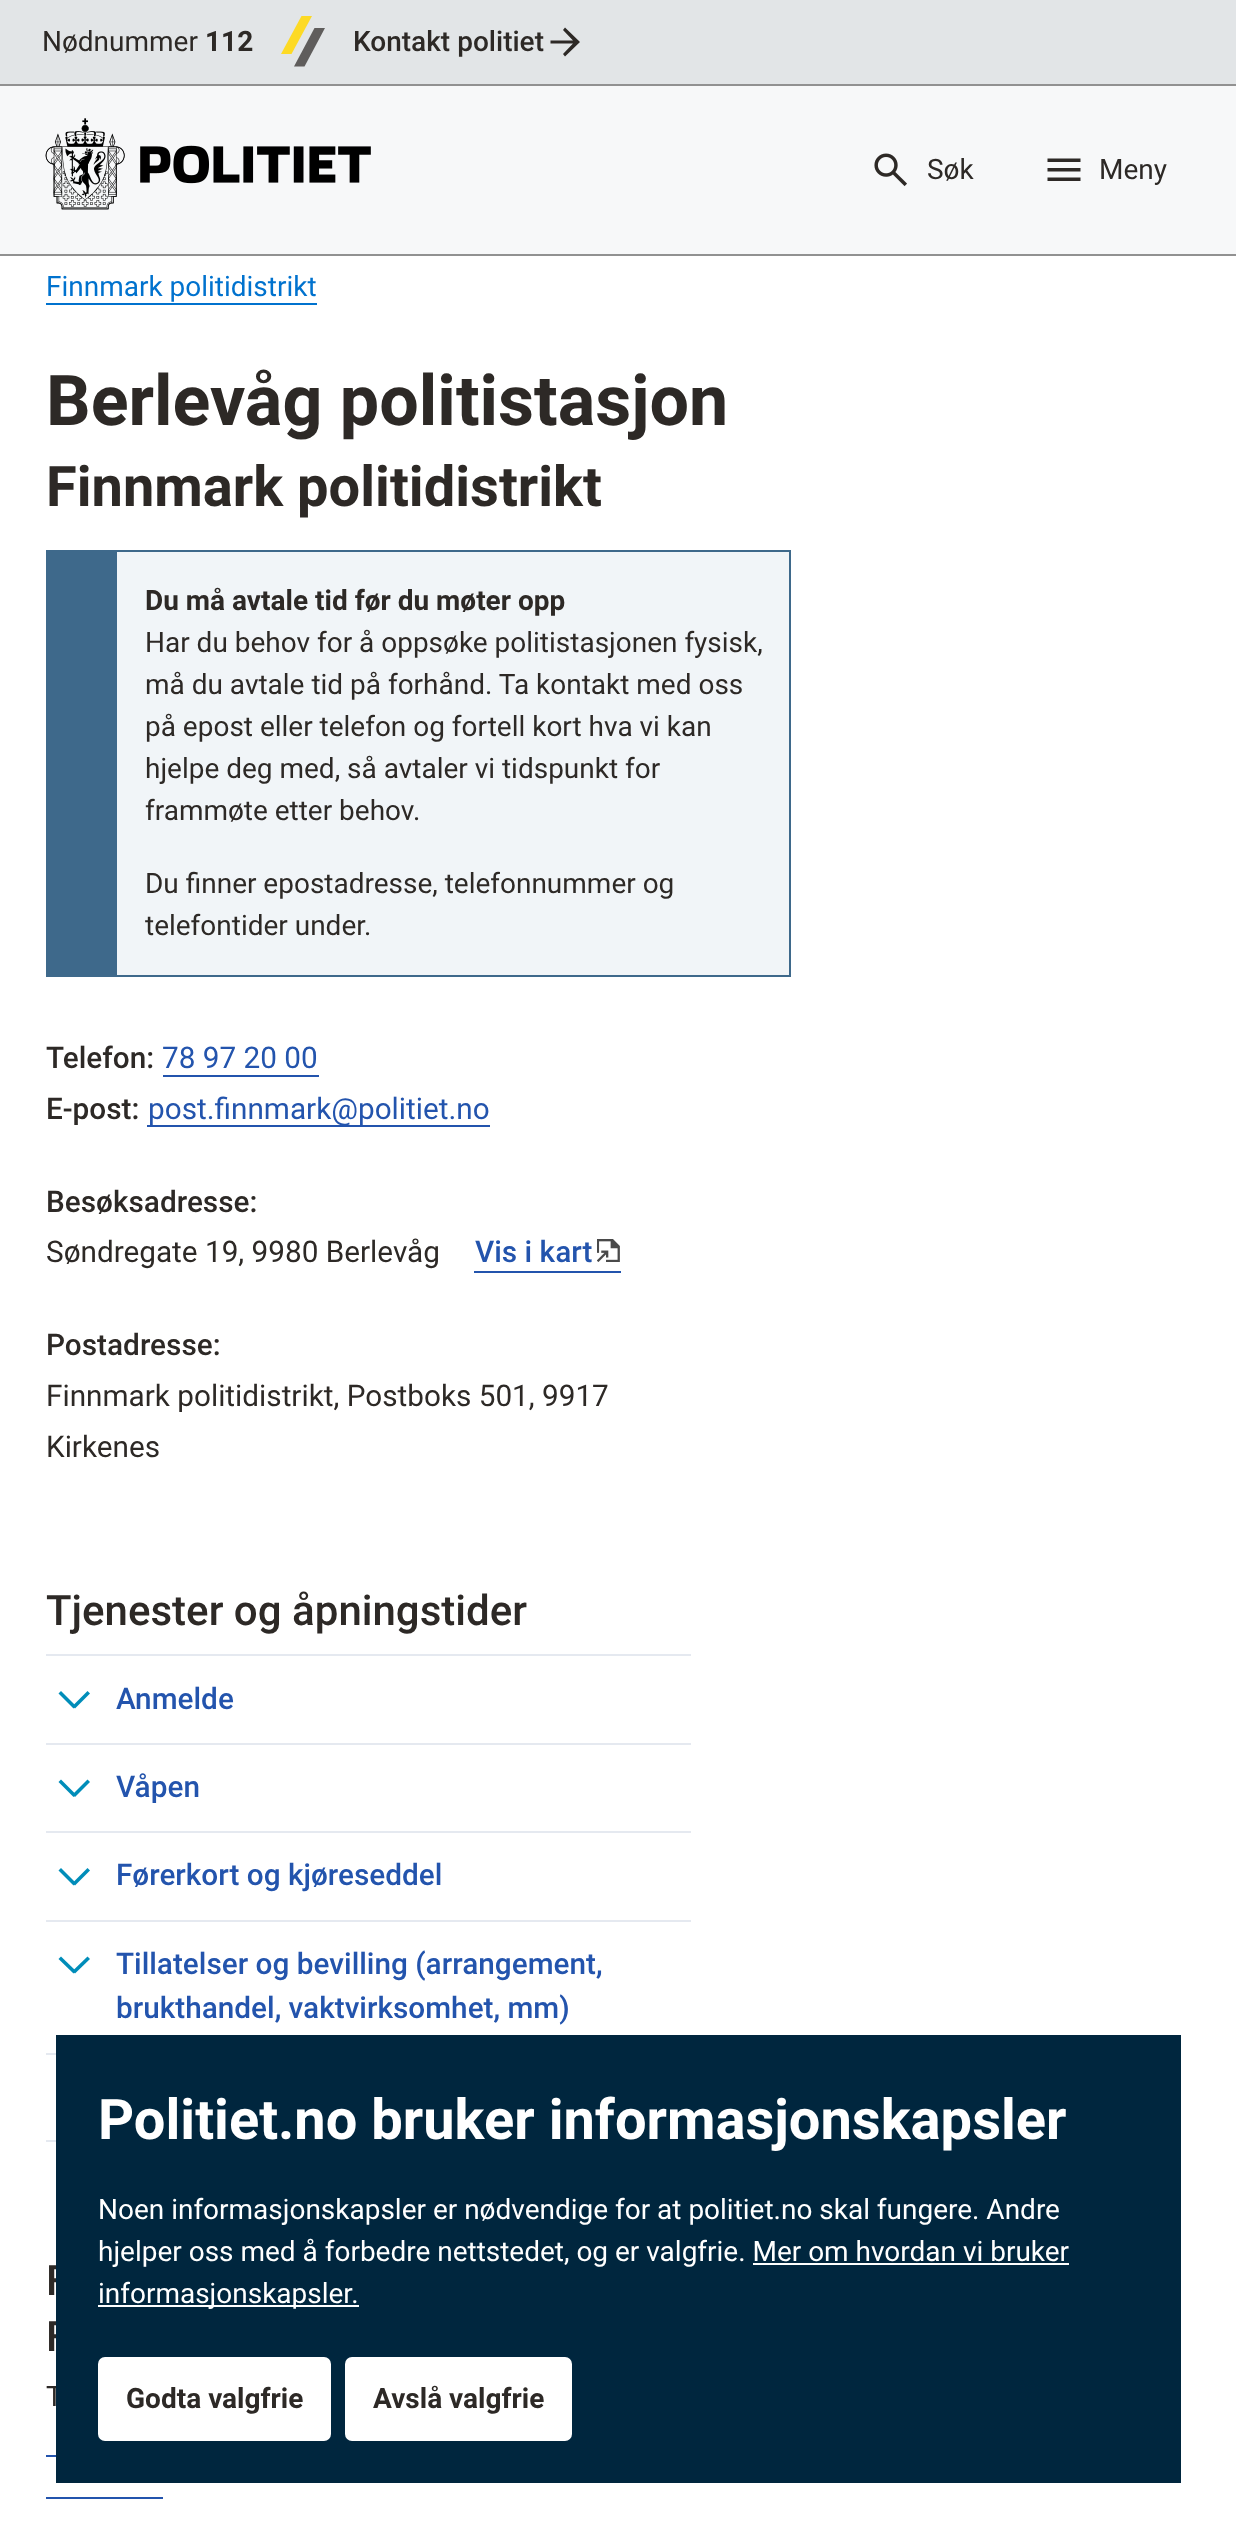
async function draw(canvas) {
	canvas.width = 1236;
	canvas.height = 2538;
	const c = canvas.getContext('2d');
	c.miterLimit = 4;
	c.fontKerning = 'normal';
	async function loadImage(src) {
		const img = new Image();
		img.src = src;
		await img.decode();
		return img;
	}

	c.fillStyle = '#fff';
	c.fillRect(0, 0, 1236, 2538);
	for (const [x, y, w, h, color] of [
		[0, 86, 1236, 168, '#f7f8f9'],
		[0, 0, 1236, 84, '#e2e5e7'],
		[0, 84, 1236, 2, '#919191'],
	]) {
		c.fillStyle = color;
		c.fillRect(x, y, w, h);
	}
	c.font = '28px Roboto';
	c.fillStyle = '#2d2926';
	c.fillText('Nødnummer', 42, 51);
	c.font = 'bold 28px Roboto';
	c.fillText('112', 205, 51);
	c.fillStyle = '#fdda25';
	c.beginPath();
	c.moveTo(301.5, 16);
	c.lineTo(312, 16);
	c.lineTo(291.5, 54);
	c.lineTo(281, 54);
	c.closePath();
	c.fill();
	c.fillStyle = '#5f5d5c';
	c.beginPath();
	c.moveTo(314.5, 28);
	c.lineTo(325, 28);
	c.lineTo(304.5, 66.5);
	c.lineTo(294, 66.5);
	c.closePath();
	c.fill();
	c.font = '500 28px Roboto';
	c.fillStyle = '#2d2926';
	c.fillText('Kontakt politiet', 353, 51);
	c.beginPath();
	c.moveTo(573, 43.5);
	c.lineTo(550.5, 43.5);
	c.lineTo(550.5, 40.5);
	c.lineTo(573, 40.5);
	c.lineTo(563, 30);
	c.lineTo(565, 27.5);
	c.lineTo(580, 42);
	c.lineTo(565, 56.5);
	c.lineTo(563, 54);
	c.closePath();
	c.fill();
	c.fillStyle = '#919191';
	c.fillRect(0, 254, 1236, 2);
	c.drawImage(await loadImage('img1.png'), 45, 118, 326, 92);
	c.drawImage(await loadImage('img2.png'), 874, 153, 33, 34);
	c.font = '28px Roboto';
	c.fillStyle = '#2d2926';
	c.fillText('Søk', 927, 179);
	c.beginPath();
	c.moveTo(1047.5, 181);
	c.lineTo(1047.5, 177.5);
	c.lineTo(1080.5, 177.5);
	c.lineTo(1080.5, 181);
	c.closePath();
	c.moveTo(1047.5, 171.5);
	c.lineTo(1047.5, 168);
	c.lineTo(1080.5, 168);
	c.lineTo(1080.5, 171.5);
	c.closePath();
	c.moveTo(1047.5, 162);
	c.lineTo(1047.5, 158.5);
	c.lineTo(1080.5, 158.5);
	c.lineTo(1080.5, 162);
	c.closePath();
	c.fill();
	c.fillText('Meny', 1099, 179);
	c.fillStyle = '#0072ce';
	c.fillText('Finnmark politidistrikt', 46, 296);
	c.fillRect(46, 303, 271, 2);
	c.font = 'bold 70px Roboto';
	c.fillStyle = '#2d2926';
	c.fillText('Berlevåg politistasjon', 46, 425);
	c.font = 'bold 56px Roboto';
	c.fillText('Finnmark politidistrikt', 46, 506);
	c.fillStyle = '#f1f5f8';
	c.fillRect(117, 552, 672, 423);
	c.strokeStyle = '#3e698b';
	c.lineWidth = 2;
	c.strokeRect(47, 551, 743, 425);
	c.fillStyle = '#3e698b';
	c.fillRect(48, 552, 69, 423);
	c.font = 'bold 28px Roboto';
	c.fillStyle = '#2d2926';
	c.fillText('Du må avtale tid før du møter opp', 145, 610);
	c.font = '28px Roboto';
	for (const [text, x, y] of [
		['Har du behov for å oppsøke politistasjonen fysisk,', 145, 652],
		['må du avtale tid på forhånd. Ta kontakt med oss', 145, 694],
		['på epost eller telefon og fortell kort hva vi kan', 145, 736],
		['hjelpe deg med, så avtaler vi tidspunkt for', 145, 778],
		['frammøte etter behov.', 145, 820],
		['Du finner epostadresse, telefonnummer og', 145, 893],
		['telefontider under.', 145, 935],
	]) {
		c.fillText(text, x, y);
	}
	c.font = '500 29.75px Roboto';
	c.fillText('Telefon:', 46, 1068);
	c.font = '29.75px Roboto';
	c.fillStyle = '#2354ad';
	c.fillText('78 97 20 00', 162, 1068);
	c.fillRect(163, 1075, 156, 2);
	c.font = '500 29.75px Roboto';
	c.fillStyle = '#2d2926';
	c.fillText('E-post:', 46, 1119);
	c.fillStyle = '#2354ad';
	c.fillRect(147, 1125, 343, 2);
	c.font = '29.75px Roboto';
	c.fillText('post.finnmark@politiet.no', 148, 1119);
	c.font = '500 29.75px Roboto';
	c.fillStyle = '#2d2926';
	c.fillText('Besøksadresse:', 46, 1212);
	c.font = '29.75px Roboto';
	c.fillText('Søndregate 19, 9980 Berlevåg', 46, 1262);
	c.fillStyle = '#2354ad';
	c.fillRect(474, 1271, 147, 2);
	c.font = '500 29.75px Roboto';
	c.fillText('Vis i kart', 475, 1262);
	c.drawImage(await loadImage('img3.png'), 597, 1239, 23, 23);
	c.fillStyle = '#2d2926';
	c.fillText('Postadresse:', 46, 1355);
	c.font = '29.75px Roboto';
	c.fillText('Finnmark politidistrikt, Postboks 501, 9917', 46, 1406);
	c.fillText('Kirkenes', 46, 1457);
	c.font = '500 42px Roboto';
	c.fillText('Tjenester og åpningstider', 46, 1625);
	c.fillStyle = '#e5e9f0';
	c.fillRect(46, 1654, 645, 2);
	c.fillRect(46, 1743, 645, 2);
	c.fillStyle = '#008db9';
	c.beginPath();
	c.moveTo(61, 1691);
	c.lineTo(76, 1706);
	c.lineTo(73.5, 1708.5);
	c.lineTo(58.5, 1693.5);
	c.closePath();
	c.fill();
	c.beginPath();
	c.moveTo(72.5, 1706);
	c.lineTo(87.5, 1691);
	c.lineTo(90, 1693.5);
	c.lineTo(75, 1708.5);
	c.closePath();
	c.fill();
	c.font = '500 29.75px Roboto';
	c.fillStyle = '#2354ad';
	c.fillText('Anmelde', 116, 1709);
	c.fillStyle = '#e5e9f0';
	c.fillRect(46, 1831, 645, 2);
	c.fillStyle = '#008db9';
	c.beginPath();
	c.moveTo(61, 1779.5);
	c.lineTo(76, 1794.5);
	c.lineTo(73.5, 1797);
	c.lineTo(58.5, 1782);
	c.closePath();
	c.fill();
	c.beginPath();
	c.moveTo(72.5, 1794.5);
	c.lineTo(87.5, 1779.5);
	c.lineTo(90, 1782);
	c.lineTo(75, 1797);
	c.closePath();
	c.fill();
	c.fillStyle = '#2354ad';
	c.fillText('Våpen', 116, 1797);
	c.fillStyle = '#e5e9f0';
	c.fillRect(46, 1920, 645, 2);
	c.fillStyle = '#008db9';
	c.beginPath();
	c.moveTo(61, 1868);
	c.lineTo(76, 1883);
	c.lineTo(73.5, 1885.5);
	c.lineTo(58.5, 1870.5);
	c.closePath();
	c.fill();
	c.beginPath();
	c.moveTo(72.5, 1883);
	c.lineTo(87.5, 1868);
	c.lineTo(90, 1870.5);
	c.lineTo(75, 1885.5);
	c.closePath();
	c.fill();
	c.fillStyle = '#2354ad';
	c.fillText('Førerkort og kjøreseddel', 116, 1885);
	c.fillStyle = '#e5e9f0';
	c.fillRect(46, 2053, 10, 2);
	c.fillStyle = '#008db9';
	c.beginPath();
	c.moveTo(61, 1956.5);
	c.lineTo(76, 1971);
	c.lineTo(73.5, 1973.5);
	c.lineTo(58.5, 1959);
	c.closePath();
	c.fill();
	c.beginPath();
	c.moveTo(72.5, 1971);
	c.lineTo(87.5, 1956.5);
	c.lineTo(90, 1959);
	c.lineTo(75, 1973.5);
	c.closePath();
	c.fill();
	c.fillStyle = '#2354ad';
	c.fillText('Tillatelser og bevilling (arrangement,', 116, 1974);
	c.fillText('brukthandel, vaktvirksomhet, mm)', 116, 2018);
	c.fillStyle = '#e5e9f0';
	c.fillRect(46, 2140, 10, 2);
	c.font = '500 42px Roboto';
	c.fillStyle = '#2d2926';
	c.fillText('F', 46, 2295);
	c.fillText('F', 46, 2351);
	c.font = '28px Roboto';
	c.fillText('T', 46, 2406);
	for (const [x, y, w, h, color] of [
		[46, 2455, 10, 2, '#2354ad'],
		[46, 2497, 117, 2, '#2354ad'],
		[56, 2035, 1125, 448, '#00263e'],
	]) {
		c.fillStyle = color;
		c.fillRect(x, y, w, h);
	}
	c.font = 'bold 56px Roboto';
	c.fillStyle = '#fff';
	c.fillText('Politiet.no bruker informasjonskapsler', 98, 2139);
	c.font = '28px Roboto';
	c.fillText('Noen informasjonskapsler er nødvendige for at politiet.no skal fungere. Andre', 98, 2219);
	c.fillText('hjelper oss med å forbedre nettstedet, og er valgfrie. Mer om hvordan vi bruker', 98, 2261);
	c.fillRect(98, 2305, 261, 2);
	c.fillText('informasjonskapsler.', 98, 2303);
	c.fillRect(753, 2263, 316, 2);
	c.beginPath();
	c.roundRect(98, 2357, 233, 84, 7);
	c.fill();
	c.font = 'bold 28px Roboto';
	c.fillStyle = '#2d2926';
	c.fillText('Godta valgfrie', 126, 2408);
	c.fillStyle = '#fff';
	c.beginPath();
	c.roundRect(345, 2357, 227, 84, 7);
	c.fill();
	c.fillStyle = '#2d2926';
	c.fillText('Avslå valgfrie', 373, 2408);
}

draw(document.querySelector('canvas'));
